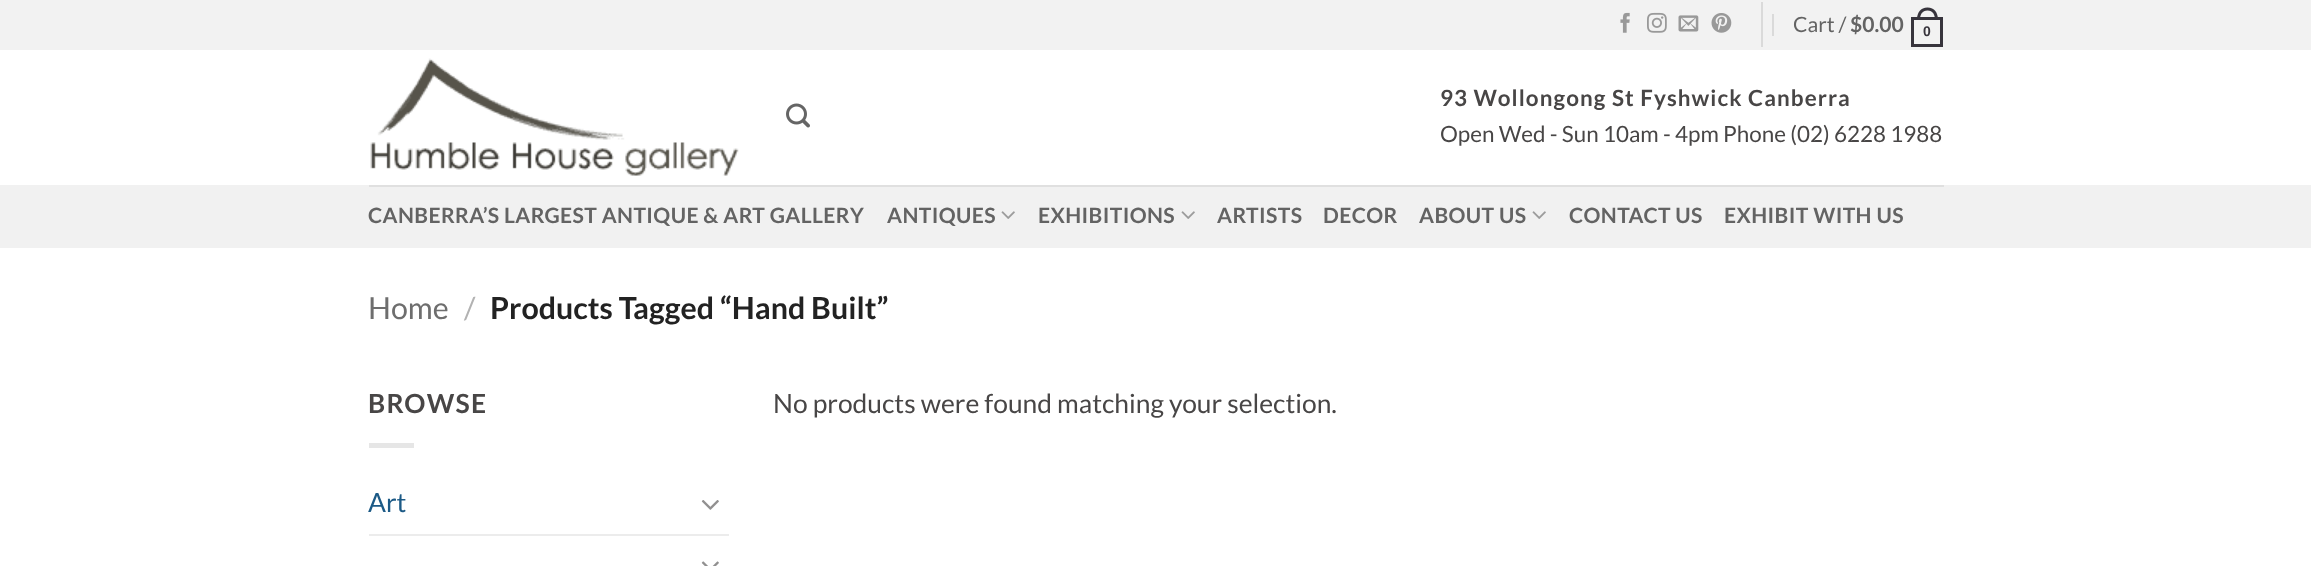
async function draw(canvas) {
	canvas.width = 2311;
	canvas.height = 566;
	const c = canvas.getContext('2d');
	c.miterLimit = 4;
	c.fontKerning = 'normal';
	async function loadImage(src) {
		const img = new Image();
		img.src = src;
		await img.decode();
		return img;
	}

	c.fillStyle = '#fff';
	c.fillRect(0, 0, 2311, 566);
	c.fillStyle = '#f2f2f2';
	c.fillRect(0, 0, 2311, 50);
	c.drawImage(await loadImage('img1.png'), 1620, 12, 10, 21);
	c.drawImage(await loadImage('img2.png'), 1647, 12, 20, 21);
	c.drawImage(await loadImage('img3.png'), 1678, 15, 21, 17);
	c.drawImage(await loadImage('img4.png'), 1711, 13, 21, 20);
	c.fillStyle = '#dadada';
	c.fillRect(1761, 2, 2, 45);
	c.fillRect(1772, 14, 2, 22);
	c.font = '21.1px Lato';
	c.fillStyle = '#636363';
	c.fillText('Cart /', 1793, 32);
	c.font = 'bold 21.1px Lato';
	c.fillText('$0.00', 1850, 32);
	c.strokeStyle = '#37343c';
	c.lineWidth = 3;
	c.strokeRect(1912.5, 18.5, 29, 27);
	c.fillStyle = '#37343c';
	c.beginPath();
	c.moveTo(1927.5, 7.5);
	c.bezierCurveTo(1934.5, 7.5, 1938, 13, 1938, 19.5);
	c.lineTo(1917, 19.5);
	c.bezierCurveTo(1917, 13, 1920.5, 7.5, 1927.5, 7.5);
	c.closePath();
	c.moveTo(1927.5, 10.5);
	c.bezierCurveTo(1933, 10.5, 1935, 15, 1935, 19.5);
	c.lineTo(1920, 19.5);
	c.bezierCurveTo(1920, 15, 1922, 10.5, 1927.5, 10.5);
	c.closePath();
	c.fill('evenodd');
	c.font = 'bold 14px Liberation Sans';
	c.fillText('0', 1923, 36);
	c.drawImage(await loadImage('img5.png'), 370, 58, 369, 118);
	c.drawImage(await loadImage('img6.png'), 786, 103, 24, 25);
	c.letterSpacing = '1.1px';
	c.font = 'bold 22.4px Lato';
	c.fillStyle = '#484646';
	c.fillText('93 Wollongong St Fyshwick Canberra', 1440, 106);
	c.letterSpacing = '0px';
	c.font = '22.4px Lato';
	c.fillText('Open Wed - Sun 10am - 4pm Phone (02) 6228 1988', 1440, 142);
	c.fillStyle = '#f1f1f1';
	c.fillRect(0, 185, 2311, 63);
	c.fillStyle = '#e0e0e0';
	c.fillRect(369, 185, 1575, 2);
	c.letterSpacing = '0.4px';
	c.font = 'bold 21.1px Lato';
	c.fillStyle = '#636363';
	c.fillText('CANBERRA’S LARGEST ANTIQUE & ART GALLERY', 368, 223);
	c.fillText('ANTIQUES', 887, 223);
	c.drawImage(await loadImage('img7.png'), 1001, 211, 14, 8);
	c.fillText('EXHIBITIONS', 1038, 223);
	c.drawImage(await loadImage('img7.png'), 1181, 211, 14, 8);
	for (const [text, x, y] of [
		['ARTISTS', 1217, 223],
		['DECOR', 1323, 223],
		['ABOUT US', 1419, 223],
	]) {
		c.fillText(text, x, y);
	}
	c.drawImage(await loadImage('img7.png'), 1532, 211, 14, 8);
	c.fillText('CONTACT US', 1569, 223);
	c.fillText('EXHIBIT WITH US', 1724, 223);
	c.letterSpacing = '0px';
	c.font = '30.4px Lato';
	c.fillStyle = '#6e6e6e';
	c.fillText('Home', 368, 319);
	c.fillStyle = '#b2b2b2';
	c.fillText('/', 464, 319);
	c.font = 'bold 30.4px Lato';
	c.fillStyle = '#222';
	c.fillText('Products Tagged “Hand Built”', 490, 319);
	c.letterSpacing = '1.25px';
	c.font = 'bold 26.4px Lato';
	c.fillStyle = '#484646';
	c.fillText('BROWSE', 368, 413);
	c.fillStyle = '#e6e6e6';
	c.fillRect(369, 443, 45, 5);
	c.letterSpacing = '0px';
	c.font = '26.4px Lato';
	c.fillStyle = '#1c5a86';
	c.fillText('Art', 368, 512);
	c.drawImage(await loadImage('img8.png'), 701, 500, 18, 10);
	c.fillStyle = '#ececec';
	c.fillRect(369, 534, 360, 2);
	c.drawImage(await loadImage('img9.png'), 701, 561, 18, 5);
	c.fillStyle = '#484646';
	c.fillText('No products were found matching your selection.', 773, 413);
}

draw(document.querySelector('canvas'));
